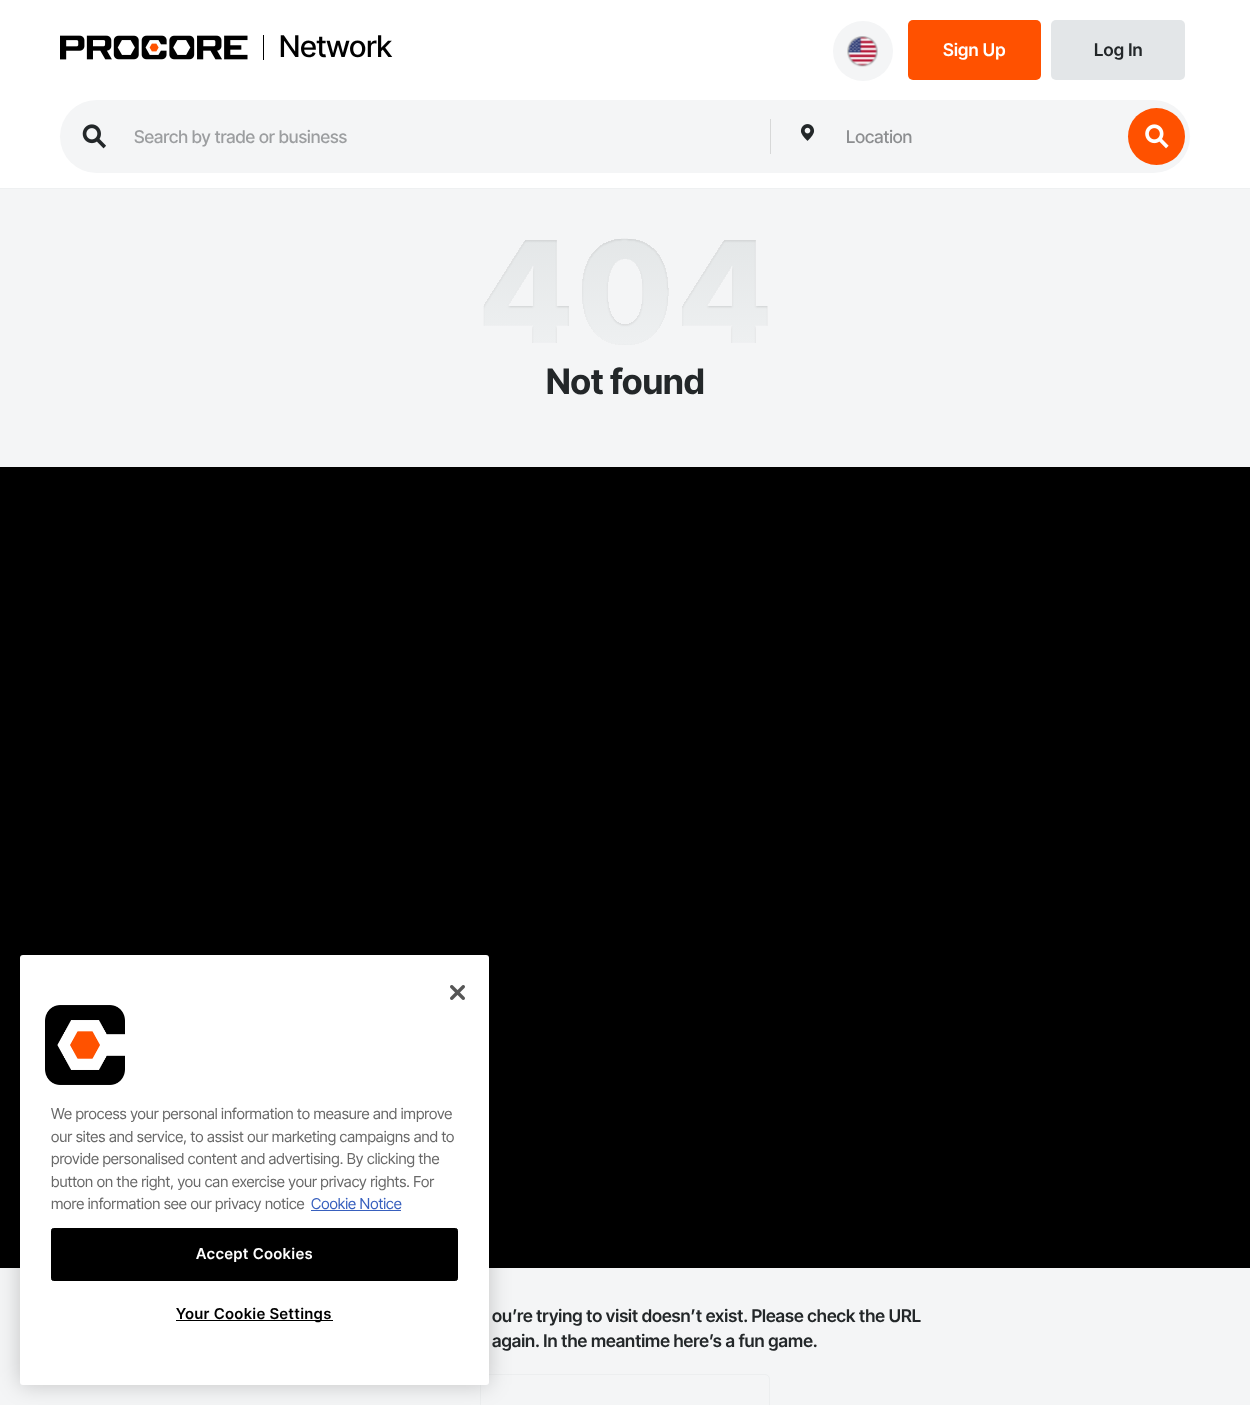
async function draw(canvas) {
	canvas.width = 1250;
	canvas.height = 1405;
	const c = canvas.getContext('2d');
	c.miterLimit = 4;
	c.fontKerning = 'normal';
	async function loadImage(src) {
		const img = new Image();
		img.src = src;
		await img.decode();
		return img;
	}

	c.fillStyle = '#f4f5f6';
	c.fillRect(0, 0, 1250, 1405);
	c.fillStyle = '#fff';
	c.fillRect(0, 0, 1250, 188);
	c.fillStyle = '#eef0f1';
	c.fillRect(0, 188, 1250, 1);
	c.drawImage(await loadImage('img1.png'), 60, 35, 188, 25);
	c.fillStyle = '#000';
	c.fillRect(263, 35, 1, 25);
	c.font = '500 30px Inter Tight';
	c.fillText('Network', 279, 57);
	c.fillStyle = '#f4f5f6';
	c.beginPath();
	c.arc(863, 51, 30, 0, 2 * Math.PI);
	c.fill();
	c.drawImage(await loadImage('img2.png'), 847, 36, 31, 31);
	c.fillStyle = '#ff5100';
	c.beginPath();
	c.roundRect(908, 20, 133, 60, 5);
	c.fill();
	c.letterSpacing = '0.25px';
	c.font = '600 17.5px Inter Tight';
	c.fillStyle = '#fff';
	c.fillText('Sign Up', 943, 56);
	c.fillStyle = '#e3e6e8';
	c.beginPath();
	c.roundRect(1051, 20, 134, 60, 5);
	c.fill();
	c.fillStyle = '#232729';
	c.fillText('Log In', 1094, 56);
	c.fillStyle = '#f4f5f6';
	c.beginPath();
	c.roundRect(60, 100, 1130, 73, 36.5);
	c.fill();
	c.drawImage(await loadImage('img3.png'), 82, 124, 24, 25);
	c.letterSpacing = '0px';
	c.font = '500 17.5px Inter Tight';
	c.fillStyle = '#9c9ea0';
	c.fillText('Search by trade or business', 134, 143);
	c.fillStyle = '#d7d8d8';
	c.fillRect(770, 119, 1, 35);
	c.drawImage(await loadImage('img4.png'), 800, 124, 15, 17);
	c.fillStyle = '#8c8e90';
	c.fillText('Location', 846, 143);
	c.fillStyle = '#ff5100';
	c.beginPath();
	c.arc(1156.5, 136.5, 28.5, 0, 2 * Math.PI);
	c.fill();
	c.drawImage(await loadImage('img5.png'), 1145, 124, 24, 25);
	c.drawImage(await loadImage('img6.png'), 483, 238, 285, 107);
	c.font = 'bold 35px Inter Tight';
	c.fillStyle = '#232729';
	c.fillText('Not found', 546, 394);
	c.fillStyle = '#000';
	c.fillRect(0, 467, 1250, 801);
	c.font = '600 17.5px Inter Tight';
	c.fillStyle = '#232729';
	c.fillText('ou’re trying to visit doesn’t exist. Please check the URL', 492, 1322);
	c.fillText('again. In the meantime here’s a fun game.', 492, 1347);
	c.beginPath();
	c.roundRect(480.5, 1374.5, 289, 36, 4.5);
	c.strokeStyle = '#eceeef';
	c.stroke();
	c.fillStyle = '#00000033';
	c.filter = 'blur(11px)';
	c.beginPath();
	c.roundRect(20, 955, 469, 430, 3);
	c.fill();
	c.filter = 'none';
	c.fillStyle = '#fff';
	c.beginPath();
	c.roundRect(20, 955, 469, 430, 3);
	c.fill();
	c.drawImage(await loadImage('img7.png'), 450, 985, 15, 15);
	c.drawImage(await loadImage('img8.png'), 45, 1005, 80, 80);
	c.font = '15px Inter Tight';
	c.fillStyle = '#696969';
	for (const [text, x, y] of [
		['We process your personal information to measure and improve', 51, 1119],
		['our sites and service, to assist our marketing campaigns and to', 51, 1142],
		['provide personalised content and advertising. By clicking the', 51, 1164],
		['button on the right, you can exercise your privacy rights. For', 51, 1187],
		['more information see our privacy notice', 51, 1209],
	]) {
		c.fillText(text, x, y);
	}
	c.fillStyle = '#3860be';
	c.fillText('Cookie Notice', 311, 1209);
	c.fillRect(311, 1210, 90, 1);
	c.fillStyle = '#000';
	c.beginPath();
	c.roundRect(51.5, 1228.5, 406, 52, 2);
	c.fill();
	c.strokeStyle = '#000';
	c.stroke();
	c.letterSpacing = '0.75px';
	c.font = '600 15px Inter Tight';
	c.fillStyle = '#fff';
	c.fillText('Accept Cookies', 196, 1259);
	c.fillStyle = '#000';
	c.fillRect(176, 1320, 157, 1);
	c.fillText('Your Cookie Settings', 176, 1319);
}

draw(document.querySelector('canvas'));
